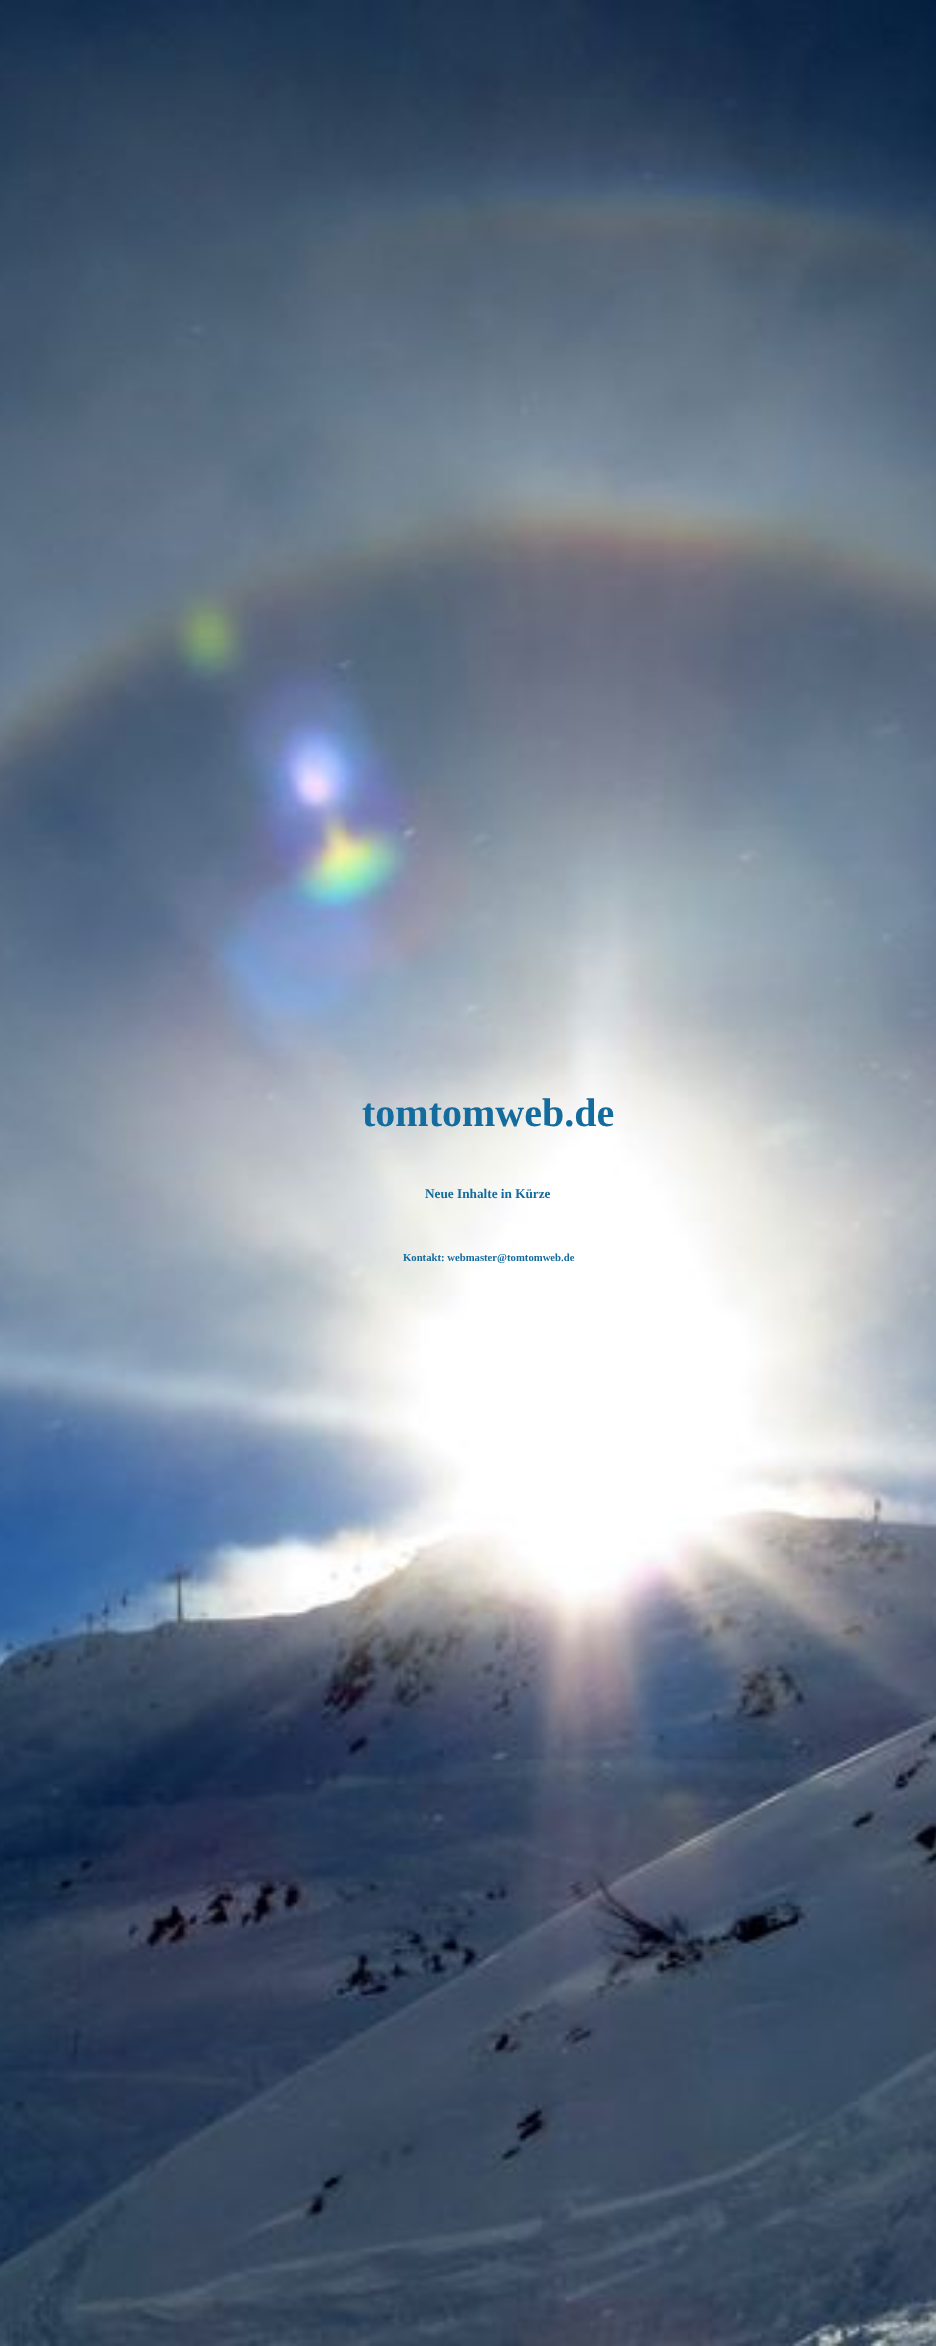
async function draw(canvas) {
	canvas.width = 936;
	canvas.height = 2346;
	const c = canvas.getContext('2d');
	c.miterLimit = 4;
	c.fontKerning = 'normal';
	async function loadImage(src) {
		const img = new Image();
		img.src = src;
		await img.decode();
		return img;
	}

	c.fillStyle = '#fff';
	c.fillRect(0, 0, 936, 2346);
	c.drawImage(await loadImage('img1.png'), 0, 0, 936, 2346);
	c.font = 'bold 40px Liberation Serif';
	c.fillStyle = '#146b9d';
	c.fillText('tomtomweb.de', 362, 1126);
	c.font = 'bold 13.25px Liberation Serif';
	c.fillText('Neue Inhalte in Kürze', 425, 1198);
	c.font = 'bold 10.7px Liberation Serif';
	c.fillText('Kontakt: webmaster@tomtomweb.de', 403, 1261);
}

draw(document.querySelector('canvas'));
